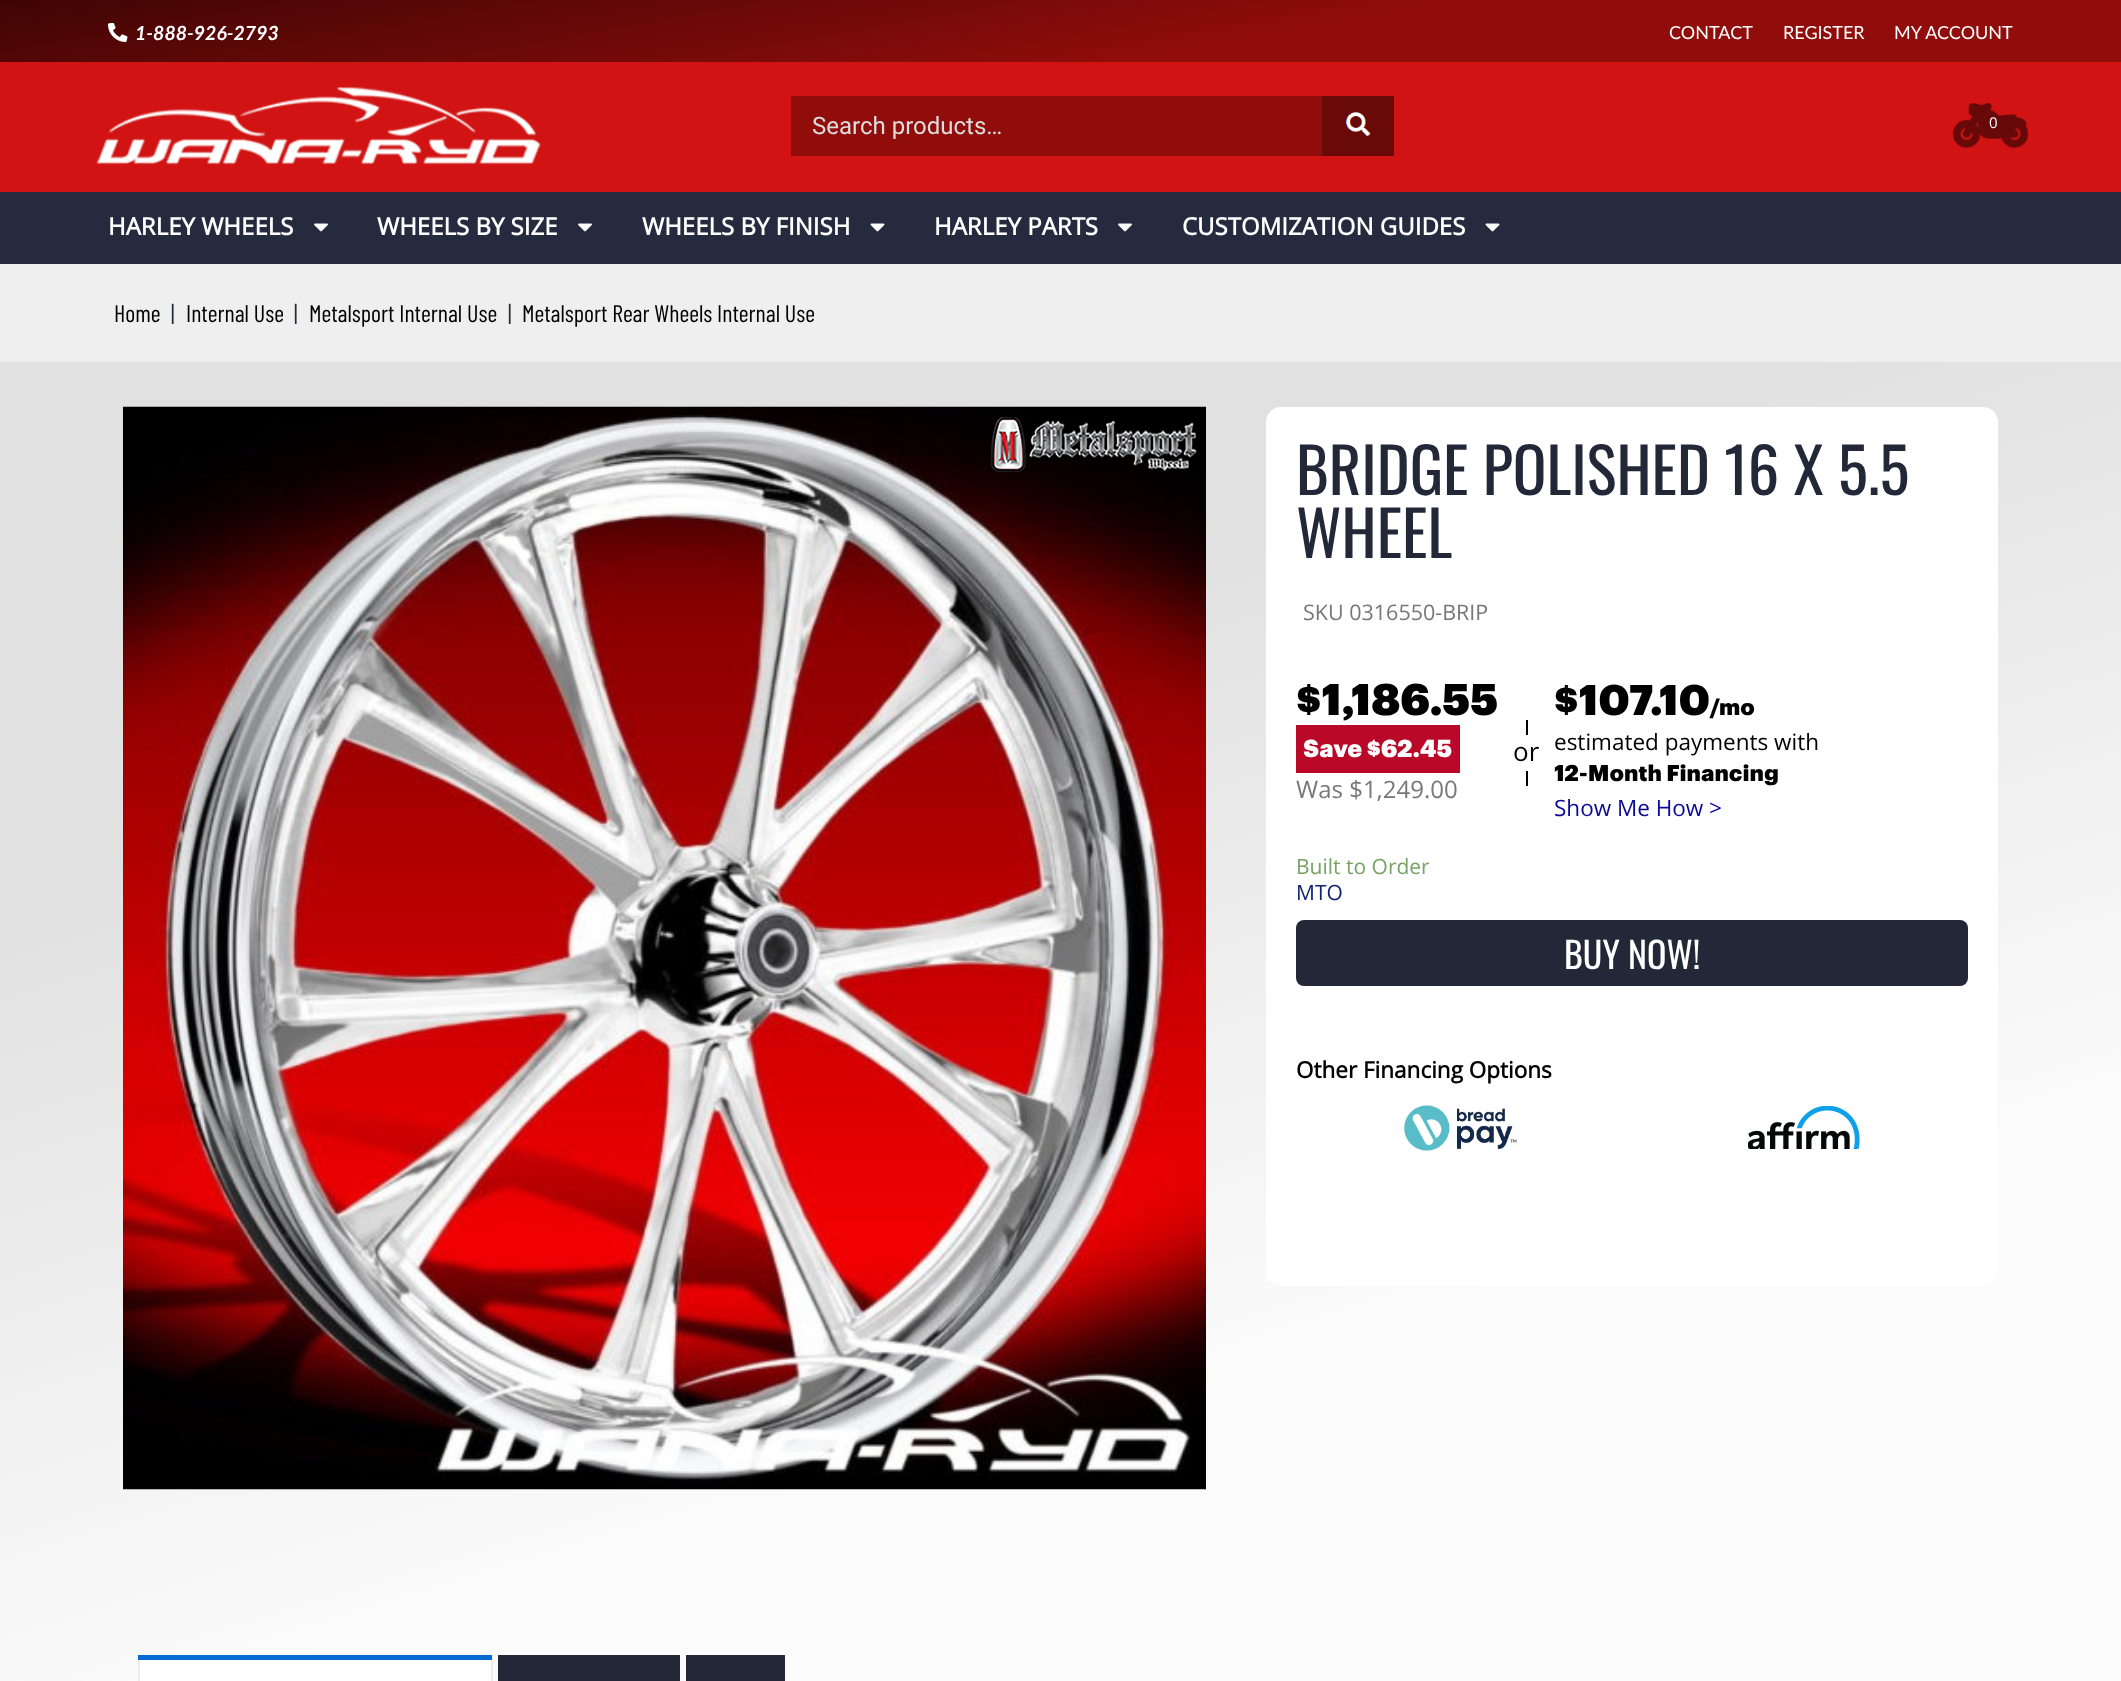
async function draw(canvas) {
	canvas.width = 2121;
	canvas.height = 1681;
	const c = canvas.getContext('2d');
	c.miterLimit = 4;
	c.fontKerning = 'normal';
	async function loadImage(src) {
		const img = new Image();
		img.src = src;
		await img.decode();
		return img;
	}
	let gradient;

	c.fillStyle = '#fff';
	c.fillRect(0, 0, 2121, 1681);
	gradient = c.createLinearGradient(1023, -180, 1098, 242);
	gradient.addColorStop(0, '#3f0504');
	gradient.addColorStop(0.6, '#910d0b');
	c.fillStyle = gradient;
	c.fillRect(0, 0, 2121, 62);
	c.drawImage(await loadImage('img1.png'), 108, 23, 20, 19);
	c.font = 'italic bold 19.5px Lato';
	c.fillStyle = '#fff';
	c.fillText('1-888-926-2793', 135, 40);
	c.font = '18px Lato';
	for (const [text, x, y] of [
		['CONTACT', 1669, 39],
		['REGISTER', 1783, 39],
		['MY ACCOUNT', 1894, 39],
	]) {
		c.fillText(text, x, y);
	}
	c.fillStyle = '#d11313';
	c.fillRect(0, 62, 2121, 130);
	c.drawImage(await loadImage('img2.png'), 96, 87, 445, 78);
	c.fillStyle = '#910d0b';
	c.fillRect(791, 96, 531, 60);
	c.font = '24px Roboto';
	c.fillStyle = '#dedede';
	c.fillText('Search products…', 812, 134);
	c.fillStyle = '#690a09';
	c.fillRect(1322, 96, 72, 60);
	c.drawImage(await loadImage('img3.png'), 1345, 112, 26, 24);
	c.drawImage(await loadImage('img4.png'), 1953, 103, 75, 45);
	c.font = '15px Open Sans';
	c.fillStyle = '#fff';
	c.fillText('0', 1989, 128);
	c.fillStyle = '#262a3f';
	c.fillRect(0, 192, 2121, 72);
	c.font = 'bold 24px Open Sans';
	c.fillStyle = '#fff';
	c.fillText('HARLEY WHEELS', 108, 235);
	c.drawImage(await loadImage('img5.png'), 314, 223, 14, 9);
	c.fillText('WHEELS BY SIZE', 377, 235);
	c.drawImage(await loadImage('img5.png'), 578, 223, 14, 9);
	c.fillText('WHEELS BY FINISH', 642, 235);
	c.drawImage(await loadImage('img6.png'), 870, 223, 15, 9);
	c.fillText('HARLEY PARTS', 934, 235);
	c.drawImage(await loadImage('img5.png'), 1118, 223, 14, 9);
	c.fillText('CUSTOMIZATION GUIDES', 1182, 235);
	c.drawImage(await loadImage('img6.png'), 1485, 223, 15, 9);
	c.fillStyle = '#efefef';
	c.fillRect(0, 264, 2121, 98);
	c.font = '24px Barlow Condensed';
	c.fillStyle = '#000';
	c.fillText('Home', 114, 322);
	c.fillStyle = '#222837';
	c.fillText('|', 171, 322);
	c.fillStyle = '#000';
	c.fillText('Internal Use', 186, 322);
	c.fillStyle = '#222837';
	c.fillText('|', 294, 322);
	c.fillStyle = '#000';
	c.fillText('Metalsport Internal Use', 309, 322);
	c.fillStyle = '#222837';
	c.fillText('|', 508, 322);
	c.fillStyle = '#000';
	c.fillText('Metalsport Rear Wheels Internal Use', 522, 322);
	gradient = c.createLinearGradient(784, 122, 1337, 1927);
	gradient.addColorStop(0.28, '#e1e1e1');
	gradient.addColorStop(0.7, '#fbfbfb');
	c.fillStyle = gradient;
	c.fillRect(0, 362, 2121, 1319);
	c.drawImage(await loadImage('img7.png'), 123, 406, 1083, 1084);
	c.drawImage(await loadImage('img8.png'), 990, 417, 208, 55);
	c.fillStyle = '#fff';
	c.beginPath();
	c.roundRect(1266, 407, 732, 879, 15);
	c.fill();
	c.font = '62.5px Oswald';
	c.fillStyle = '#222837';
	c.fillText('BRIDGE POLISHED 16 X 5.5', 1296, 495);
	c.fillText('WHEEL', 1296, 558);
	c.font = '21.5px Open Sans';
	c.fillStyle = '#777';
	c.fillText('SKU 0316550-BRIP', 1303, 620);
	c.font = '900 43.5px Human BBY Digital';
	c.fillStyle = '#000';
	c.fillText('$1,186.55', 1296, 715);
	c.fillStyle = '#b90828';
	c.fillRect(1296, 725, 164, 48);
	c.font = '900 24px Human BBY Digital';
	c.fillStyle = '#fff';
	c.fillText('Save $62.45', 1303, 757);
	c.font = '24px Open Sans';
	c.fillStyle = '#777';
	c.fillText('Was $1,249.00', 1296, 798);
	c.fillStyle = '#000';
	c.fillRect(1526, 720, 2, 15);
	c.font = '26px Open Sans';
	c.fillText('or', 1513, 761);
	c.fillRect(1526, 771, 2, 15);
	c.font = '900 42px Human BBY Digital';
	c.fillText('$107.10', 1554, 715);
	c.font = '900 22.5px Human BBY Digital';
	c.fillText('/mo', 1710, 715);
	c.font = '22.5px Open Sans';
	c.fillText('estimated payments with', 1554, 750);
	c.font = '900 22.5px Human BBY Digital';
	c.fillText('12-Month Financing', 1554, 781);
	c.font = '22.5px Open Sans';
	c.fillStyle = '#0a0a97';
	c.fillText('Show Me How >', 1554, 816);
	c.font = '21px Open Sans';
	c.fillStyle = '#77a464';
	c.fillText('Built to Order', 1296, 874);
	c.fillStyle = '#0f2470';
	c.fillText('MTO', 1296, 900);
	c.fillStyle = '#222837';
	c.beginPath();
	c.roundRect(1296, 920, 672, 66, 8);
	c.fill();
	c.font = '36px Oswald';
	c.fillStyle = '#fff';
	c.fillText('BUY NOW!', 1564, 969);
	c.font = 'bold 22.5px Open Sans';
	c.fillStyle = '#000';
	c.fillText('Other Financing Options', 1296, 1078);
	c.drawImage(await loadImage('img9.png'), 1404, 1105, 113, 46);
	c.drawImage(await loadImage('img10.png'), 1748, 1106, 112, 43);
	for (const [x, y, w, h, color] of [
		[140, 1660, 351, 21, '#fff'],
		[491, 1655, 2, 26, '#ececec'],
		[138, 1655, 2, 26, '#ececec'],
		[138, 1655, 354, 5, '#046bd2'],
		[498, 1655, 182, 26, '#222837'],
		[686, 1655, 99, 26, '#222837'],
	]) {
		c.fillStyle = color;
		c.fillRect(x, y, w, h);
	}
}

draw(document.querySelector('canvas'));
